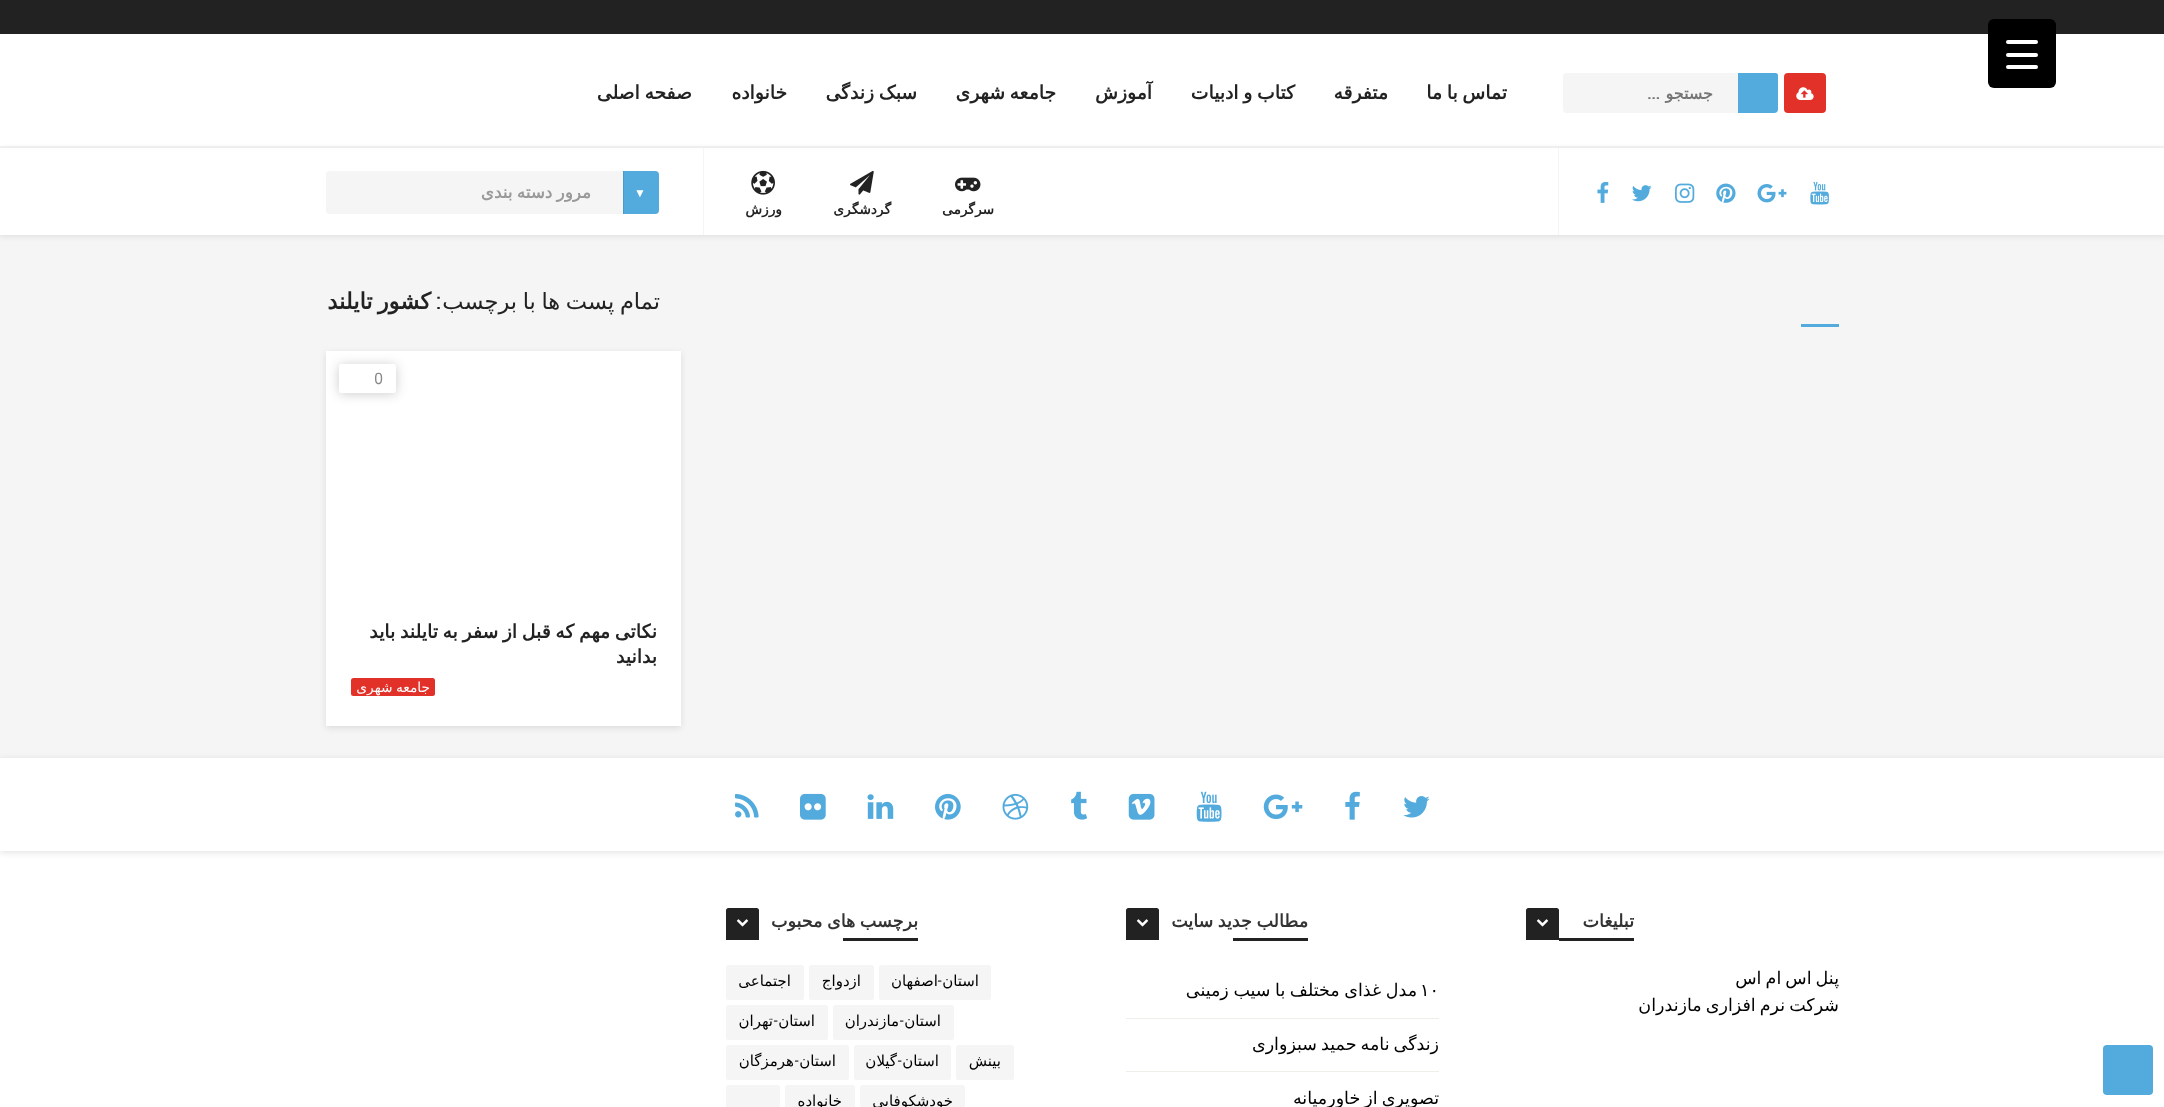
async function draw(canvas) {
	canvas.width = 2164;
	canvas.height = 1107;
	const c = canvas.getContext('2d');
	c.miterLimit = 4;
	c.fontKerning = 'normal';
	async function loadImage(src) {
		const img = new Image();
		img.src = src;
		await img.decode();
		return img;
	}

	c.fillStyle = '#f5f5f5';
	c.fillRect(0, 0, 2164, 1107);
	c.fillStyle = '#fff';
	c.fillRect(0, 34, 2164, 112);
	c.fillStyle = '#222';
	c.fillRect(0, 0, 2164, 34);
	c.fillStyle = '#000';
	c.beginPath();
	c.roundRect(1988, 19, 68, 69, 6);
	c.fill();
	c.fillStyle = '#fff';
	c.beginPath();
	c.roundRect(2006, 53, 32, 4, 2);
	c.fill();
	c.beginPath();
	c.roundRect(2006, 40, 32, 4, 2);
	c.fill();
	c.beginPath();
	c.roundRect(2006, 65, 32, 4, 2);
	c.fill();
	c.fillStyle = '#e23129';
	c.beginPath();
	c.roundRect(1784, 73, 42, 40, 4);
	c.fill();
	c.drawImage(await loadImage('img1.png'), 1796, 87, 18, 13);
	c.fillStyle = '#52aadd';
	c.beginPath();
	c.roundRect(1738, 73, 40, 40, [0, 2.5, 4, 0]);
	c.fill();
	c.fillStyle = '#f5f5f5';
	c.beginPath();
	c.roundRect(1563, 73, 175, 40, [4, 0, 0, 4]);
	c.fill();
	c.direction = 'rtl';
	c.font = 'bold 16px DejaVu Sans';
	c.fillStyle = '#757575';
	c.fillText('جستجو', 1713, 99);
	c.font = 'bold 16px Ruda';
	c.fillText('...', 1660, 99);
	c.wordSpacing = '-1.25px';
	c.font = 'bold 18.75px DejaVu Sans';
	c.fillStyle = '#222';
	c.fillText('تماس با ما', 1507, 99);
	c.wordSpacing = '0px';
	c.fillText('متفرقه', 1388, 99);
	c.wordSpacing = '-1.25px';
	c.fillText('کتاب و ادبیات', 1295, 99);
	c.wordSpacing = '0px';
	c.fillText('آموزش', 1152, 99);
	c.wordSpacing = '-1.25px';
	c.fillText('جامعه شهری', 1056, 99);
	c.fillText('سبک زندگی', 917, 99);
	c.wordSpacing = '0px';
	c.fillText('خانواده', 787, 99);
	c.wordSpacing = '-1.25px';
	c.fillText('صفحه اصلی', 692, 99);
	c.fillStyle = '#0000001a';
	c.filter = 'blur(3px)';
	c.beginPath();
	c.rect(0, 149, 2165, 87);
	c.fill();
	c.filter = 'none';
	c.fillStyle = '#fff';
	c.fillRect(0, 148, 2164, 87);
	c.fillStyle = '#f5f5f5';
	c.fillRect(1558, 148, 1, 87);
	c.drawImage(await loadImage('img2.png'), 1810, 181, 19, 24);
	c.drawImage(await loadImage('img3.png'), 1757, 184, 30, 19);
	c.drawImage(await loadImage('img4.png'), 1716, 183, 20, 20);
	c.drawImage(await loadImage('img5.png'), 1675, 183, 20, 20);
	c.drawImage(await loadImage('img6.png'), 1632, 185, 20, 17);
	c.drawImage(await loadImage('img7.png'), 1597, 182, 12, 21);
	c.beginPath();
	c.roundRect(326, 171, 333, 43, 4);
	c.fill();
	c.fillStyle = '#52aadd';
	c.beginPath();
	c.roundRect(623, 171, 36, 43, [0, 4, 4, 0]);
	c.fill();
	c.fillStyle = '#4a99c7';
	c.fillRect(623, 171, 1, 43);
	c.save();
	c.beginPath();
	c.rect(365, 181, 226, 23);
	c.clip();
	c.wordSpacing = '-1px';
	c.font = 'bold 16.75px DejaVu Sans';
	c.fillStyle = '#999';
	c.fillText('مرور دسته بندی', 591, 198);
	c.restore();
	c.wordSpacing = '0px';
	c.direction = 'ltr';
	c.font = '12px Liberation Sans';
	c.fillStyle = '#fff';
	c.fillText('▼', 634, 197);
	c.fillStyle = '#f5f5f5';
	c.fillRect(703, 148, 1, 87);
	c.drawImage(await loadImage('img8.png'), 955, 177, 26, 15);
	c.direction = 'rtl';
	c.font = 'bold 13.75px DejaVu Sans';
	c.fillStyle = '#222';
	c.fillText('سرگرمی', 994, 214);
	c.drawImage(await loadImage('img9.png'), 850, 170, 24, 25);
	c.fillText('گردشگری', 891, 214);
	c.drawImage(await loadImage('img10.png'), 751, 170, 24, 25);
	c.fillText('ورزش', 782, 214);
	c.wordSpacing = '-1.5px';
	c.font = '22.5px DejaVu Sans';
	c.fillText('تمام پست ها با برچسب', 660, 309);
	c.wordSpacing = '0px';
	c.font = '22.5px Ruda';
	c.fillText(':', 442, 309);
	c.wordSpacing = '-2px';
	c.font = 'bold 22.5px DejaVu Sans';
	c.fillText('کشور تایلند', 431, 309);
	c.fillStyle = '#52aadd';
	c.fillRect(1801, 324, 38, 3);
	c.fillStyle = '#0000001a';
	c.filter = 'blur(3px)';
	c.beginPath();
	c.rect(326, 353, 355, 375);
	c.fill();
	c.filter = 'none';
	c.fillStyle = '#fff';
	c.fillRect(326, 351, 355, 375);
	c.fillStyle = '#00000033';
	c.filter = 'blur(6px)';
	c.beginPath();
	c.roundRect(339, 365, 57, 29, 2.5);
	c.fill();
	c.filter = 'none';
	c.fillStyle = '#fff';
	c.beginPath();
	c.roundRect(339, 364, 57, 29, 2.5);
	c.fill();
	c.wordSpacing = '0px';
	c.direction = 'ltr';
	c.font = '16px Ruda';
	c.fillStyle = '#888';
	c.fillText('0', 374, 384);
	c.wordSpacing = '-1.25px';
	c.direction = 'rtl';
	c.font = 'bold 18.75px DejaVu Sans';
	c.fillStyle = '#222';
	c.fillText('نکاتی مهم که قبل از سفر به تایلند باید', 657, 638);
	c.wordSpacing = '0px';
	c.fillText('بدانید', 657, 663);
	c.fillStyle = '#e23129';
	c.beginPath();
	c.roundRect(351, 678, 84, 18, 2.5);
	c.fill();
	c.wordSpacing = '-1px';
	c.font = '13.75px DejaVu Sans';
	c.fillStyle = '#fff';
	c.fillText('جامعه شهری', 430, 692);
	c.fillRect(0, 758, 2164, 349);
	c.save();
	c.beginPath();
	c.moveTo(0, 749);
	c.lineTo(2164, 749);
	c.lineTo(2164, 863);
	c.lineTo(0, 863);
	c.closePath();
	c.moveTo(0, 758);
	c.lineTo(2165, 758);
	c.lineTo(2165, 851);
	c.lineTo(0, 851);
	c.closePath();
	c.clip('evenodd');
	c.fillStyle = '#0000001a';
	c.filter = 'blur(3px)';
	c.beginPath();
	c.rect(0, 759, 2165, 94);
	c.fill();
	c.filter = 'none';
	c.restore();
	c.drawImage(await loadImage('img11.png'), 1403, 796, 27, 22);
	c.drawImage(await loadImage('img12.png'), 1345, 791, 15, 29);
	c.drawImage(await loadImage('img13.png'), 1263, 794, 40, 25);
	c.drawImage(await loadImage('img14.png'), 1196, 791, 26, 31);
	c.drawImage(await loadImage('img15.png'), 1128, 793, 27, 27);
	c.drawImage(await loadImage('img16.png'), 1071, 791, 17, 29);
	c.drawImage(await loadImage('img17.png'), 1002, 793, 27, 27);
	c.drawImage(await loadImage('img18.png'), 935, 793, 26, 27);
	c.drawImage(await loadImage('img19.png'), 867, 794, 27, 25);
	c.drawImage(await loadImage('img20.png'), 800, 793, 26, 27);
	c.drawImage(await loadImage('img21.png'), 735, 793, 24, 25);
	c.fillStyle = '#52aadd';
	c.beginPath();
	c.roundRect(2103, 1045, 50, 50, 4);
	c.fill();
	c.wordSpacing = '0px';
	c.font = 'bold 17.5px DejaVu Sans';
	c.fillStyle = '#333';
	c.fillText('تبلیغات', 1634, 927);
	c.fillStyle = '#222';
	c.fillRect(1559, 938, 75, 3);
	c.beginPath();
	c.roundRect(1526, 908, 33, 32, [2.5, 2.5, 0, 0]);
	c.fill();
	c.drawImage(await loadImage('img22.png'), 1536, 919, 13, 8);
	c.wordSpacing = '-1.5px';
	c.font = '17.5px DejaVu Sans';
	c.fillStyle = '#000';
	c.fillText('پنل اس ام اس', 1839, 984);
	c.fillText('شرکت نرم افزاری مازندران', 1839, 1011);
	c.wordSpacing = '-1px';
	c.font = 'bold 17.5px DejaVu Sans';
	c.fillStyle = '#333';
	c.fillText('مطالب جدید سایت', 1308, 927);
	c.fillStyle = '#222';
	c.fillRect(1233, 938, 75, 3);
	c.beginPath();
	c.roundRect(1126, 908, 33, 32, [2.5, 2.5, 0, 0]);
	c.fill();
	c.drawImage(await loadImage('img22.png'), 1136, 919, 13, 8);
	c.fillStyle = '#f0eee9';
	c.fillRect(1126, 1018, 313, 1);
	c.wordSpacing = '0px';
	c.direction = 'ltr';
	c.font = '17.5px DejaVu Sans';
	c.fillStyle = '#000';
	c.fillText('۱۰', 1420, 996);
	c.wordSpacing = '-1px';
	c.direction = 'rtl';
	c.fillText('مدل غذای مختلف با سیب زمینی', 1417, 996);
	c.fillStyle = '#f0eee9';
	c.fillRect(1126, 1071, 313, 1);
	c.wordSpacing = '-1.5px';
	c.fillStyle = '#000';
	c.fillText('زندگی نامه حمید سبزواری', 1439, 1050);
	c.fillText('تصویری از خاورمیانه', 1439, 1104);
	c.wordSpacing = '-1px';
	c.font = 'bold 17.5px DejaVu Sans';
	c.fillStyle = '#333';
	c.fillText('برچسب های محبوب', 918, 927);
	c.fillStyle = '#222';
	c.fillRect(843, 938, 75, 3);
	c.beginPath();
	c.roundRect(726, 908, 33, 32, [2.5, 2.5, 0, 0]);
	c.fill();
	c.drawImage(await loadImage('img22.png'), 736, 919, 13, 8);
	c.fillStyle = '#f5f5f5';
	c.beginPath();
	c.roundRect(879, 965, 112, 35, 2.5);
	c.fill();
	c.wordSpacing = '0px';
	c.font = '15px DejaVu Sans';
	c.fillStyle = '#000';
	c.fillText('استان', 979, 986);
	c.font = '15px Ruda';
	c.fillText('-', 942, 986);
	c.font = '15px DejaVu Sans';
	c.fillText('اصفهان', 938, 986);
	c.fillStyle = '#f5f5f5';
	c.beginPath();
	c.roundRect(809, 965, 65, 35, 2.5);
	c.fill();
	c.fillStyle = '#000';
	c.fillText('ازدواج', 861, 986);
	c.fillStyle = '#f5f5f5';
	c.beginPath();
	c.roundRect(726, 965, 78, 35, 2.5);
	c.fill();
	c.fillStyle = '#000';
	c.fillText('اجتماعی', 791, 986);
	c.fillStyle = '#f5f5f5';
	c.beginPath();
	c.roundRect(833, 1005, 121, 35, 2.5);
	c.fill();
	c.fillStyle = '#000';
	c.fillText('استان', 941, 1026);
	c.font = '15px Ruda';
	c.fillText('-', 904, 1026);
	c.font = '15px DejaVu Sans';
	c.fillText('مازندران', 899, 1026);
	c.fillStyle = '#f5f5f5';
	c.beginPath();
	c.roundRect(726, 1005, 102, 35, 2.5);
	c.fill();
	c.fillStyle = '#000';
	c.fillText('استان', 815, 1026);
	c.font = '15px Ruda';
	c.fillText('-', 778, 1026);
	c.font = '15px DejaVu Sans';
	c.fillText('تهران', 773, 1026);
	c.fillStyle = '#f5f5f5';
	c.beginPath();
	c.roundRect(956, 1045, 58, 35, 2.5);
	c.fill();
	c.fillStyle = '#000';
	c.fillText('بینش', 1001, 1066);
	c.fillStyle = '#f5f5f5';
	c.beginPath();
	c.roundRect(854, 1045, 97, 35, 2.5);
	c.fill();
	c.fillStyle = '#000';
	c.fillText('استان', 939, 1066);
	c.fillText('گیلان', 897, 1066);
	c.font = '15px Ruda';
	c.fillText('-', 902, 1066);
	c.fillStyle = '#f5f5f5';
	c.beginPath();
	c.roundRect(726, 1045, 123, 35, 2.5);
	c.fill();
	c.font = '15px DejaVu Sans';
	c.fillStyle = '#000';
	c.fillText('استان', 836, 1066);
	c.font = '15px Ruda';
	c.fillText('-', 799, 1066);
	c.font = '15px DejaVu Sans';
	c.fillText('هرمزگان', 794, 1066);
	c.fillStyle = '#f5f5f5';
	c.beginPath();
	c.roundRect(860, 1085, 105, 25, 2.5);
	c.fill();
	c.fillStyle = '#000';
	c.fillText('خودشکوفایی', 953, 1106);
	c.fillStyle = '#f5f5f5';
	c.beginPath();
	c.roundRect(785, 1085, 70, 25, 2.5);
	c.fill();
	c.fillStyle = '#000';
	c.fillText('خانواده', 842, 1106);
	c.fillStyle = '#f5f5f5';
	c.beginPath();
	c.roundRect(726, 1085, 54, 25, 2.5);
	c.fill();
}

draw(document.querySelector('canvas'));
